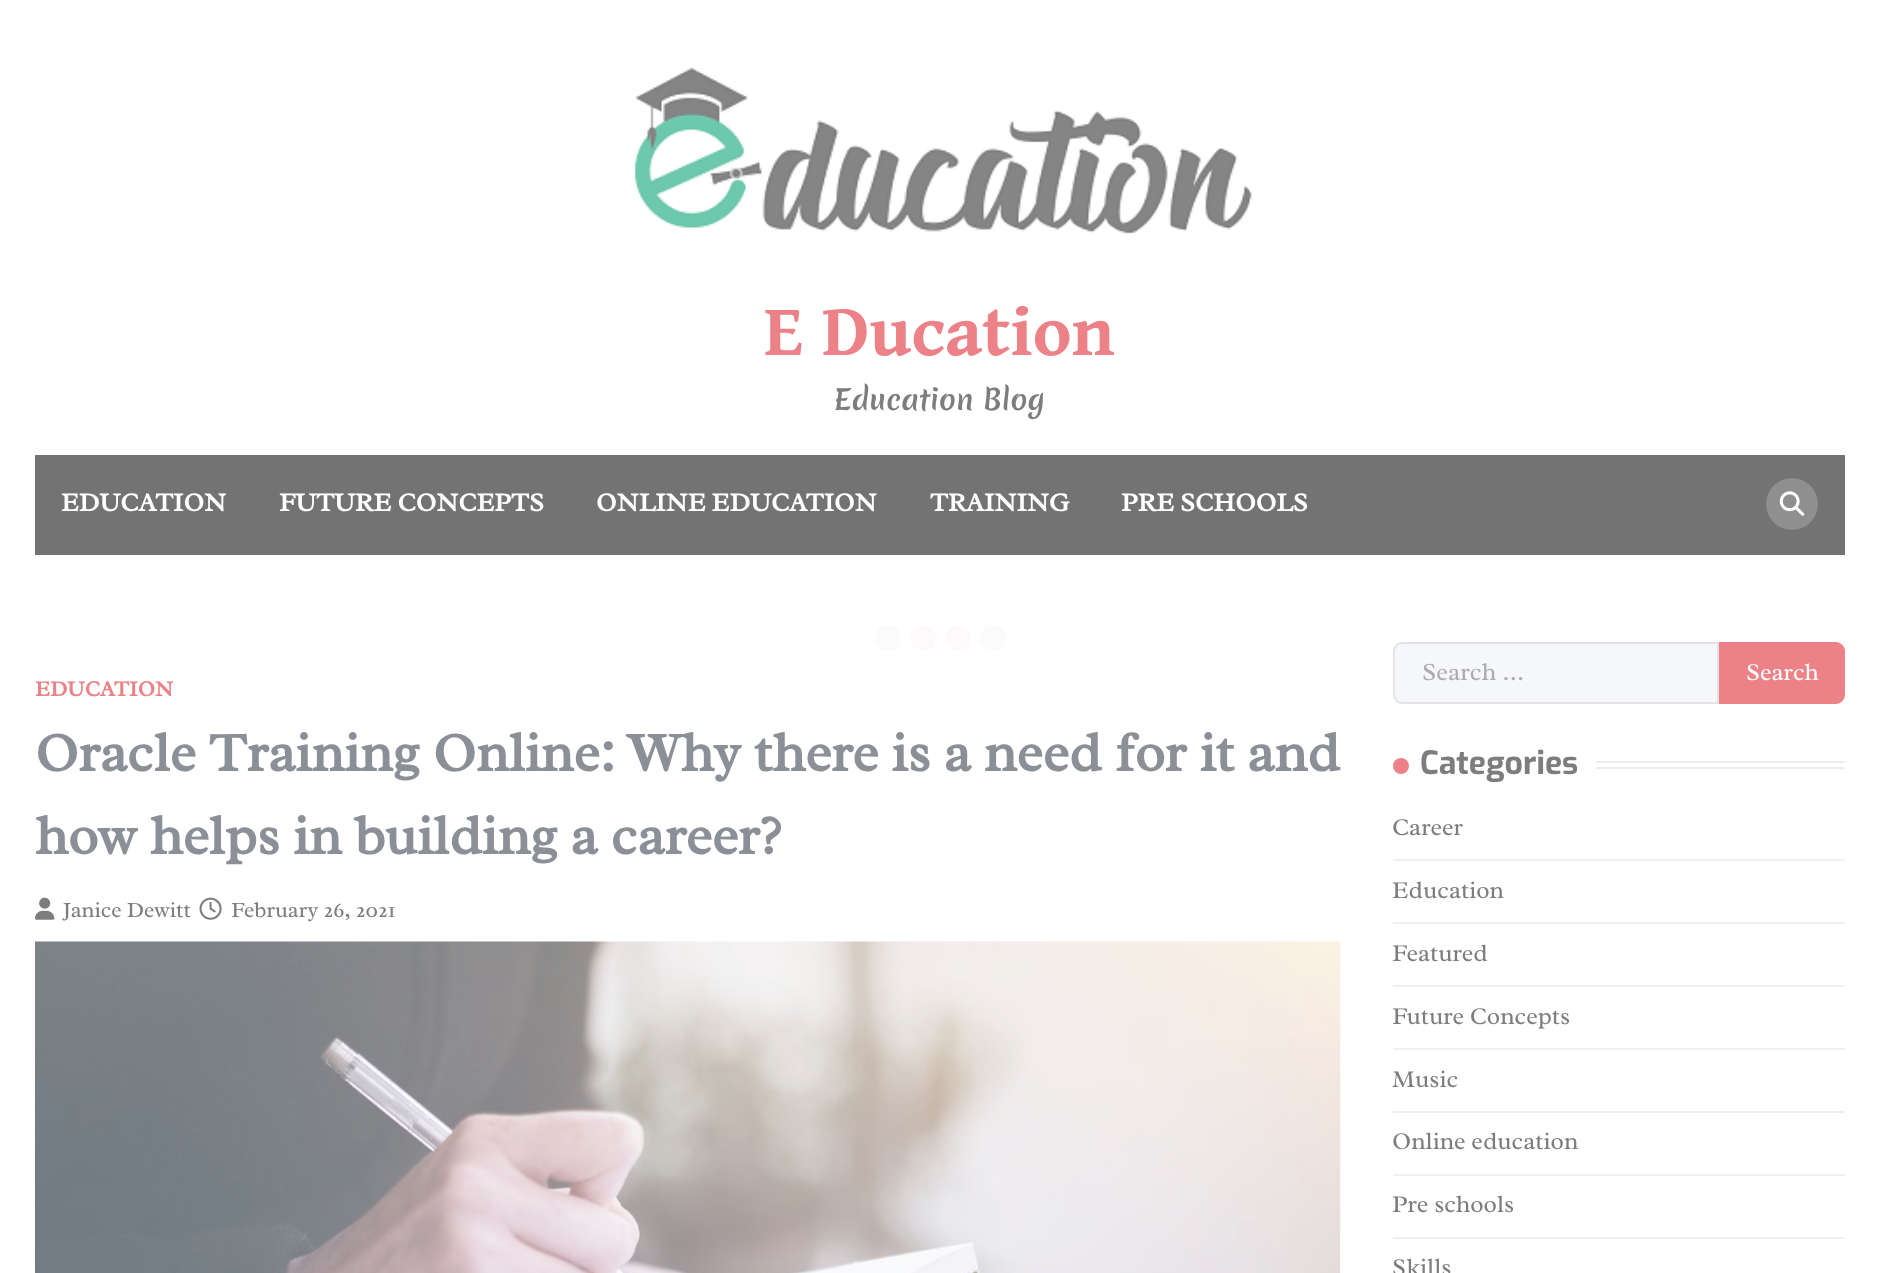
async function draw(canvas) {
	canvas.width = 1878;
	canvas.height = 1273;
	const c = canvas.getContext('2d');
	c.miterLimit = 4;
	c.fontKerning = 'normal';
	async function loadImage(src) {
		const img = new Image();
		img.src = src;
		await img.decode();
		return img;
	}
	let gradient;

	c.fillStyle = '#fff';
	c.fillRect(0, 0, 1878, 1273);
	c.drawImage(await loadImage('img1.png'), 634, 67, 618, 167);
	c.font = 'bold 73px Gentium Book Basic';
	c.fillStyle = '#ec8288';
	c.fillText('E Ducation', 764, 355);
	c.font = '28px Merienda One';
	c.fillStyle = '#7d7d7d';
	c.fillText('Education Blog', 834, 410);
	c.fillStyle = '#737374';
	c.fillRect(35, 455, 1810, 100);
	c.font = 'bold 26.25px Radley';
	c.fillStyle = '#fff';
	for (const [text, x, y] of [
		['EDUCATION', 61, 511],
		['FUTURE CONCEPTS', 279, 511],
		['ONLINE EDUCATION', 596, 511],
		['TRAINING', 930, 511],
		['PRE SCHOOLS', 1121, 511],
	]) {
		c.fillText(text, x, y);
	}
	c.fillStyle = '#8f8f90';
	c.beginPath();
	c.arc(1792, 504, 26, 0, 2 * Math.PI);
	c.fill();
	c.drawImage(await loadImage('img2.png'), 1779, 491, 26, 25);
	gradient = c.createRadialGradient(958, 638, 0, 958, 638, 13);
	gradient.addColorStop(0.95, '#fefafb');
	gradient.addColorStop(1, '#fff');
	c.fillStyle = gradient;
	c.fillRect(945, 625, 26, 26);
	gradient = c.createRadialGradient(923, 638, 0, 923, 638, 13);
	gradient.addColorStop(0.95, '#fefafb');
	gradient.addColorStop(1, '#fff');
	c.fillStyle = gradient;
	c.fillRect(910, 625, 26, 26);
	c.fillStyle = '#fbfbfb';
	c.beginPath();
	c.arc(888, 638, 13, 0, 2 * Math.PI);
	c.fill();
	c.beginPath();
	c.arc(993, 638, 13, 0, 2 * Math.PI);
	c.fill();
	c.font = 'bold 22px Radley';
	c.fillStyle = '#ec8288';
	c.fillText('EDUCATION', 35, 696);
	c.font = 'bold 55.5px Radley';
	c.fillStyle = '#8b8f97';
	c.fillText('Oracle Training Online: Why there is a need for it and', 35, 771);
	c.fillText('how helps in building a career?', 35, 854);
	c.drawImage(await loadImage('img3.png'), 35, 897, 20, 23);
	c.font = '22px Radley';
	c.fillStyle = '#7d7d7d';
	c.fillText('Janice Dewitt', 63, 917);
	c.drawImage(await loadImage('img4.png'), 199, 897, 23, 23);
	c.fillText('February 26, 2021', 231, 917);
	c.drawImage(await loadImage('img5.png'), 35, 941, 1306, 332);
	c.fillStyle = '#f6f7fa';
	c.beginPath();
	c.roundRect(1394, 643, 324, 60, [8, 0, 0, 8]);
	c.fill();
	c.strokeStyle = '#e5e2e4';
	c.lineWidth = 2;
	c.stroke();
	c.font = '25px Radley';
	c.fillStyle = '#acacac';
	c.fillText('Search …', 1422, 680);
	c.fillStyle = '#ec8288';
	c.beginPath();
	c.roundRect(1720, 643, 124, 60, [0, 8, 8, 0]);
	c.fill();
	c.strokeStyle = '#ec8288';
	c.stroke();
	c.font = '24.5px Radley';
	c.fillStyle = '#fff';
	c.fillText('Search', 1746, 680);
	c.fillStyle = '#ec8288';
	c.beginPath();
	c.arc(1401, 766, 8, 0, 2 * Math.PI);
	c.fill();
	c.font = 'bold 32px Exo';
	c.fillStyle = '#7d7d7d';
	c.fillText('Categories', 1420, 774);
	for (const [x, y, w, h, color] of [
		[1596, 761, 249, 2, '#ededed'],
		[1596, 767, 249, 2, '#ededed'],
		[1393, 859, 452, 2, '#f0f0f0'],
	]) {
		c.fillStyle = color;
		c.fillRect(x, y, w, h);
	}
	c.font = '24.5px Radley';
	c.fillStyle = '#7d7d7d';
	c.fillText('Career', 1392, 835);
	c.fillStyle = '#f0f0f0';
	c.fillRect(1393, 922, 452, 2);
	c.fillStyle = '#7d7d7d';
	c.fillText('Education', 1392, 898);
	c.fillStyle = '#f0f0f0';
	c.fillRect(1393, 985, 452, 2);
	c.fillStyle = '#7d7d7d';
	c.fillText('Featured', 1392, 961);
	c.fillStyle = '#f0f0f0';
	c.fillRect(1393, 1048, 452, 2);
	c.fillStyle = '#7d7d7d';
	c.fillText('Future Concepts', 1392, 1024);
	c.fillStyle = '#f0f0f0';
	c.fillRect(1393, 1111, 452, 2);
	c.fillStyle = '#7d7d7d';
	c.fillText('Music', 1392, 1087);
	c.fillStyle = '#f0f0f0';
	c.fillRect(1393, 1174, 452, 2);
	c.fillStyle = '#7d7d7d';
	c.fillText('Online education', 1392, 1149);
	c.fillStyle = '#f0f0f0';
	c.fillRect(1393, 1237, 452, 2);
	c.fillStyle = '#7d7d7d';
	c.fillText('Pre schools', 1392, 1212);
	c.fillText('Skills', 1392, 1275);
}

draw(document.querySelector('canvas'));
